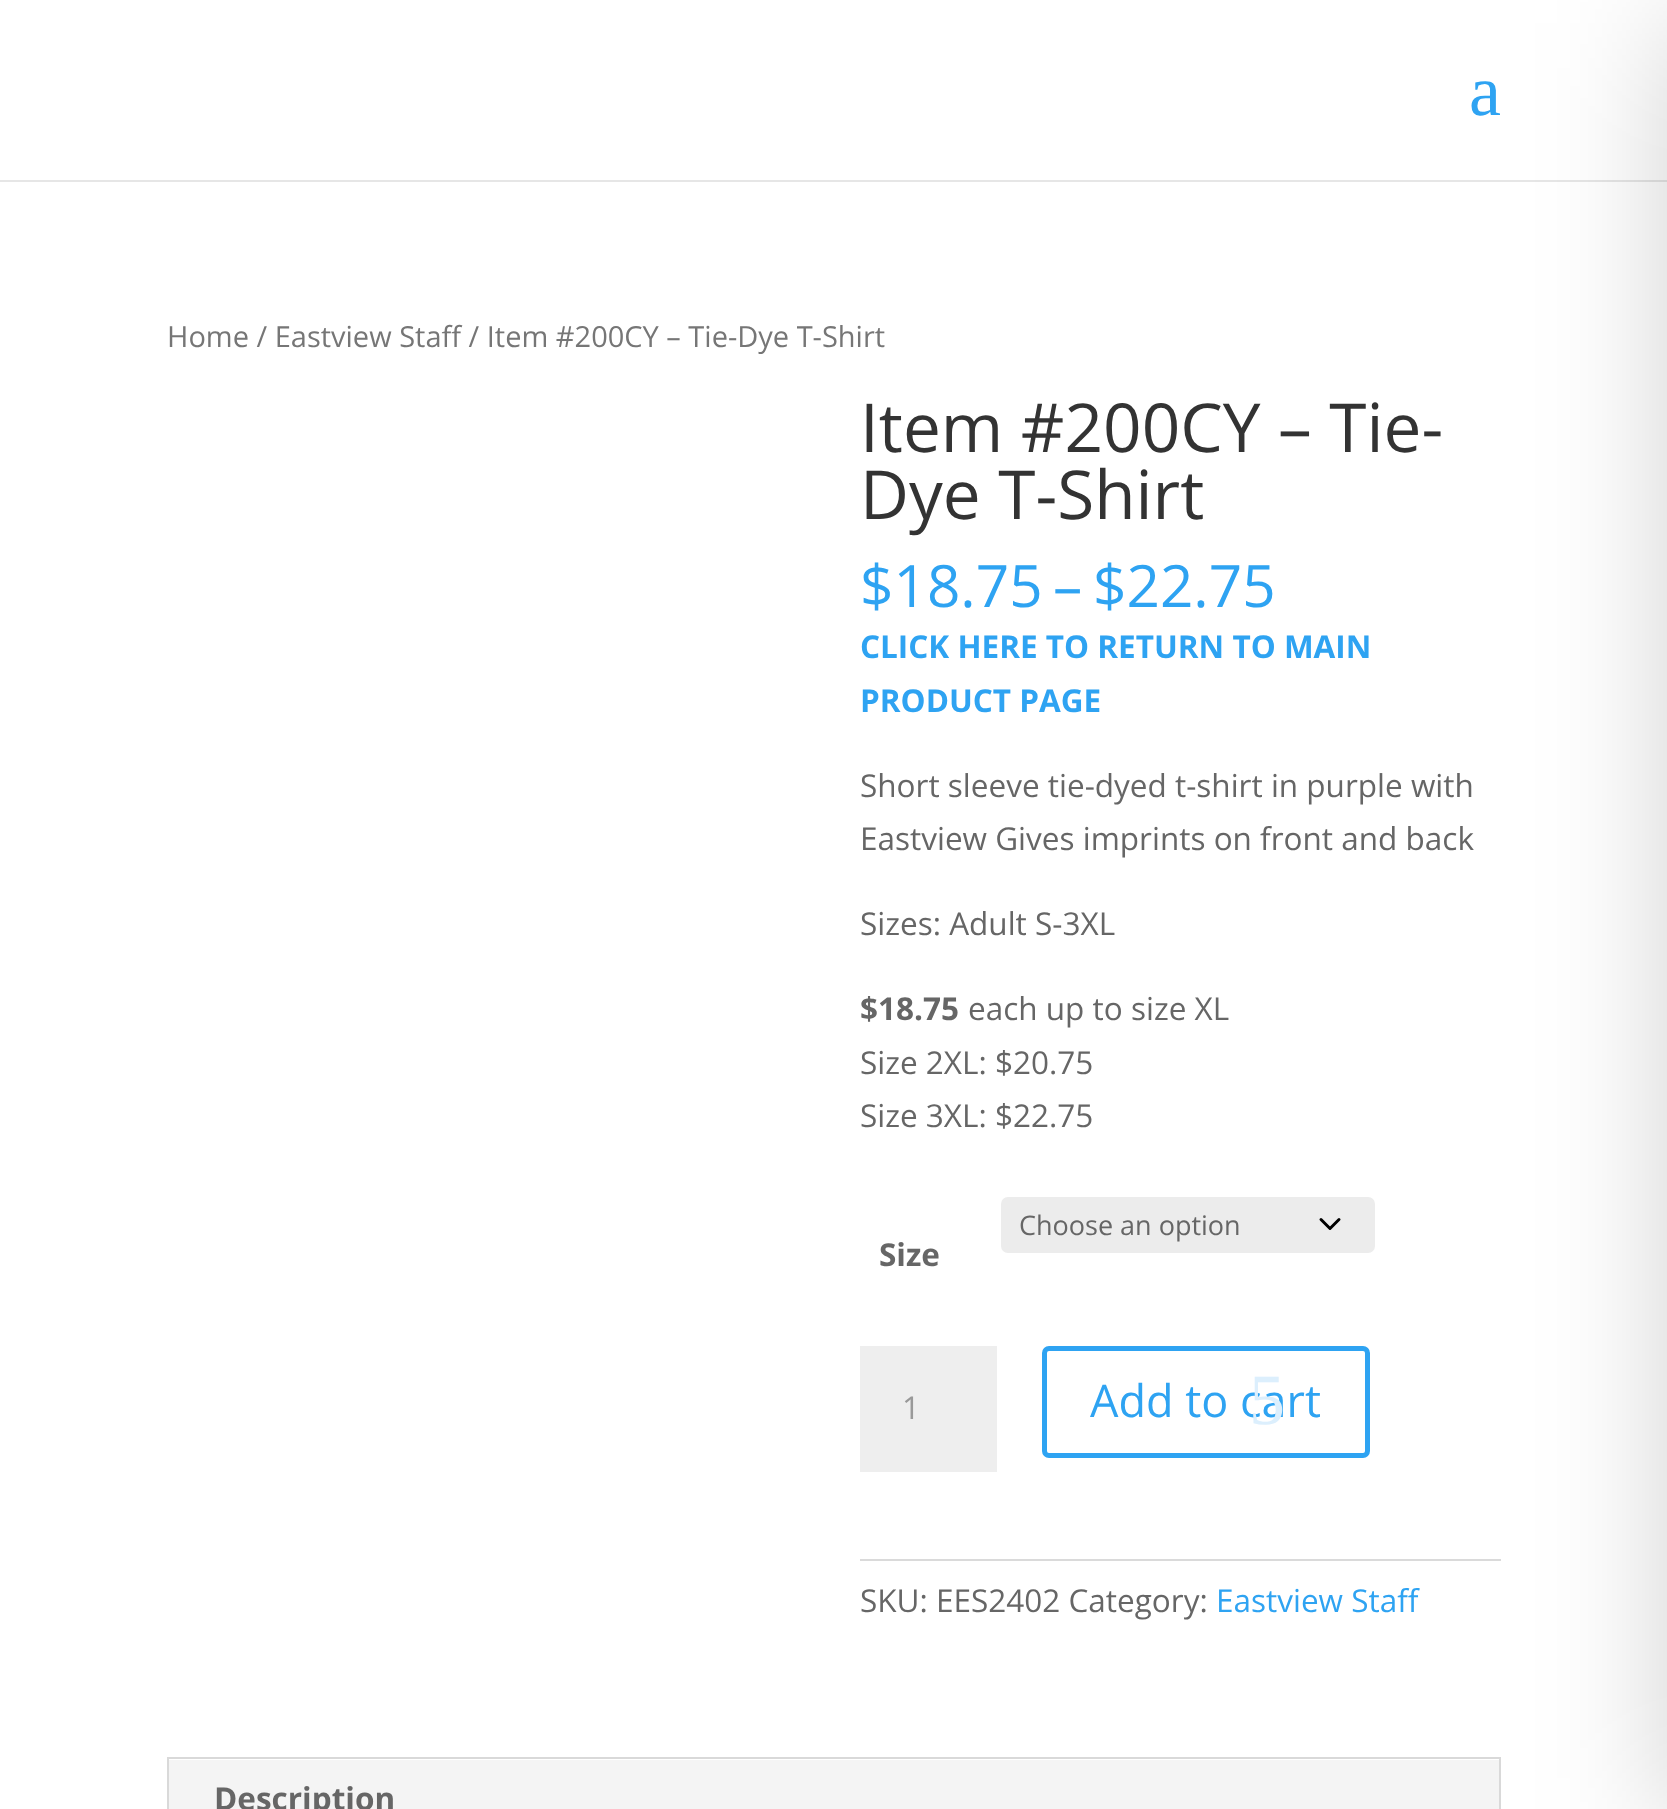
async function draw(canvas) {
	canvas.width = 1667;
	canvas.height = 1809;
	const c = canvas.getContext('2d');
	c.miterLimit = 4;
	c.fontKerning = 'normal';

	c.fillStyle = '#fff';
	c.fillRect(0, 0, 1667, 1809);
	c.fillStyle = '#e6e6e6';
	c.fillRect(0, 180, 1667, 2);
	c.font = '72px Liberation Serif';
	c.fillStyle = '#2ea3f2';
	c.fillText('a', 1469, 115);
	c.font = '29px Open Sans';
	c.fillStyle = '#767676';
	c.fillText('Home / Eastview Staff / Item #200CY – Tie-Dye T-Shirt', 167, 347);
	c.font = '67.5px Open Sans';
	c.fillStyle = '#333';
	c.fillText('Item #200CY – Tie-', 860, 452);
	c.fillText('Dye T-Shirt', 860, 519);
	c.font = '58.5px Open Sans';
	c.fillStyle = '#2ea3f2';
	for (const [text, x, y] of [
		['$18.75', 860, 607],
		['–', 1053, 607],
		['$22.75', 1093, 607],
	]) {
		c.fillText(text, x, y);
	}
	c.font = 'bold 31.5px Open Sans';
	c.fillText('CLICK HERE TO RETURN TO MAIN', 860, 658);
	c.fillText('PRODUCT PAGE', 860, 712);
	c.font = '31.5px Open Sans';
	c.fillStyle = '#666';
	for (const [text, x, y] of [
		['Short sleeve tie-dyed t-shirt in purple with', 860, 797],
		['Eastview Gives imprints on front and back', 860, 850],
		['Sizes: Adult S-3XL', 860, 935],
	]) {
		c.fillText(text, x, y);
	}
	c.font = 'bold 31.5px Open Sans';
	c.fillText('$18.75', 860, 1020);
	c.font = '31.5px Open Sans';
	for (const [text, x, y] of [
		['each up to size XL', 968, 1020],
		['Size 2XL: $20.75', 860, 1074],
		['Size 3XL: $22.75', 860, 1127],
	]) {
		c.fillText(text, x, y);
	}
	c.fillStyle = '#ececec';
	c.beginPath();
	c.roundRect(1001, 1197, 374, 56, 7);
	c.fill();
	c.beginPath();
	c.moveTo(1321, 1219.5);
	c.lineTo(1330, 1228.5);
	c.lineTo(1339, 1219.5);
	c.strokeStyle = '#000';
	c.lineWidth = 3;
	c.lineCap = 'round';
	c.lineJoin = 'round';
	c.stroke();
	c.font = '27px Open Sans';
	c.fillStyle = '#666';
	c.fillText('Choose an option', 1019, 1235);
	c.font = 'bold 31.5px Open Sans';
	c.fillText('Size', 879, 1266);
	c.fillStyle = '#eee';
	c.fillRect(860, 1346, 137, 126);
	c.font = '31.5px Open Sans';
	c.fillStyle = '#999';
	c.fillText('1', 902, 1419);
	c.beginPath();
	c.roundRect(1044.5, 1348.5, 323, 107, 4.5);
	c.strokeStyle = '#2ea3f2';
	c.lineWidth = 5;
	c.lineJoin = 'miter';
	c.stroke();
	c.font = '45px Open Sans';
	c.fillStyle = '#2ea3f2';
	c.fillText('Add to cart', 1090, 1417);
	c.font = '72px Liberation Serif';
	c.fillStyle = '#dceffd';
	c.fillText('5', 1249, 1424);
	c.fillStyle = '#dadada';
	c.fillRect(860, 1559, 641, 2);
	c.font = '31.5px Open Sans';
	c.fillStyle = '#666';
	c.fillText('SKU: EES2402 Category:', 860, 1612);
	c.fillStyle = '#2ea3f2';
	c.fillText('Eastview Staff', 1216, 1612);
	c.strokeStyle = '#d9d9d9';
	c.lineWidth = 2;
	c.strokeRect(168, 1758, 1332, 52);
	c.fillStyle = '#f4f4f4';
	c.fillRect(169, 1760, 1330, 49);
	c.font = 'bold 31.5px Open Sans';
	c.fillStyle = '#666';
	c.fillText('Description', 214, 1810);
	c.fillStyle = '#00000033';
	c.filter = 'blur(67.5px)';
	c.beginPath();
	c.rect(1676, 23, 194, 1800);
	c.fill();
	c.filter = 'none';
}

draw(document.querySelector('canvas'));
